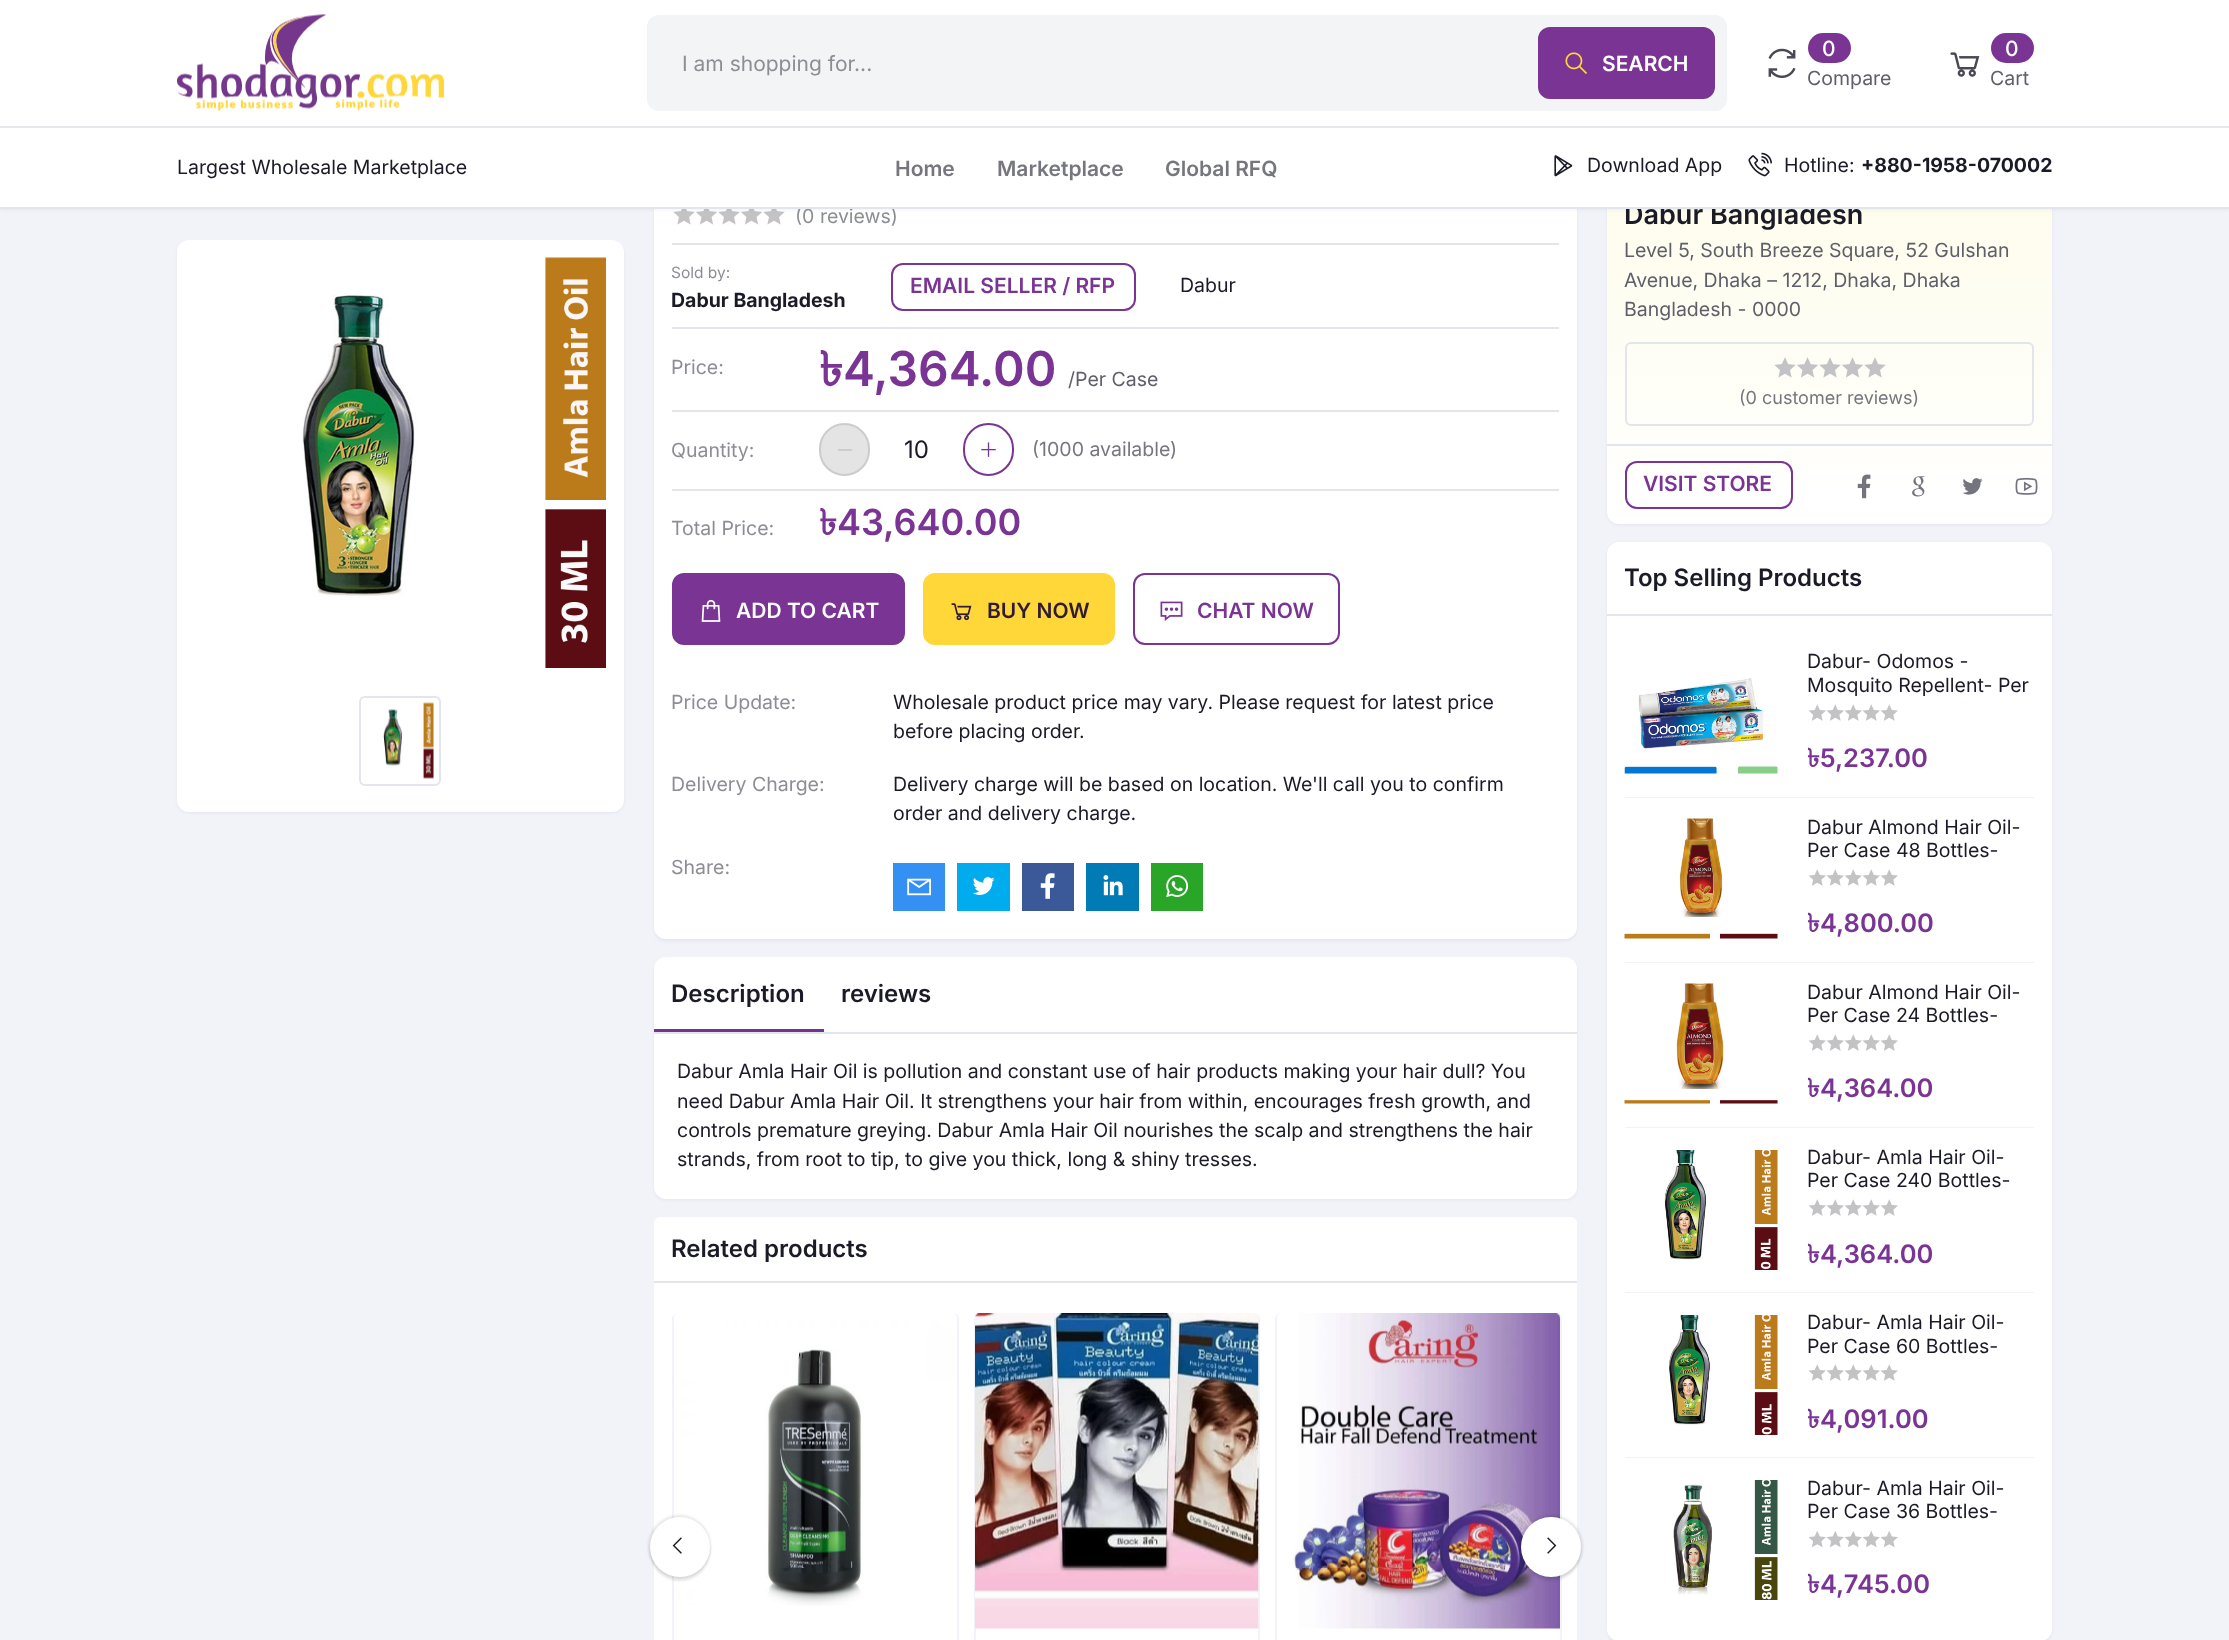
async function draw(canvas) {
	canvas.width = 2229;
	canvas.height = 1640;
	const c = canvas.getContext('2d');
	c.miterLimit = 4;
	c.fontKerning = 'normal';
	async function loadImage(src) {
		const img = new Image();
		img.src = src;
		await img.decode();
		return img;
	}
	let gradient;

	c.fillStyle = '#f2f3f8';
	c.fillRect(0, 0, 2229, 1640);
	c.fillStyle = '#0000000d';
	c.filter = 'blur(1.5px)';
	c.beginPath();
	c.roundRect(654, 126, 923, 815, 12);
	c.fill();
	c.filter = 'none';
	c.fillStyle = '#fff';
	c.beginPath();
	c.roundRect(654, 125, 923, 814, 12);
	c.fill();
	c.drawImage(await loadImage('img9.png'), 673, 209, 22, 16);
	c.drawImage(await loadImage('img10.png'), 696, 209, 21, 16);
	c.drawImage(await loadImage('img9.png'), 718, 209, 22, 16);
	c.drawImage(await loadImage('img10.png'), 741, 209, 21, 16);
	c.drawImage(await loadImage('img9.png'), 763, 209, 22, 16);
	c.fillStyle = '#0000000d';
	c.filter = 'blur(1.5px)';
	c.beginPath();
	c.roundRect(1607, 126, 445, 399, 12);
	c.fill();
	c.filter = 'none';
	c.fillStyle = '#fff';
	c.beginPath();
	c.roundRect(1607, 125, 445, 399, 12);
	c.fill();
	gradient = c.createLinearGradient(1829, 124, 1829, 524);
	gradient.addColorStop(0, '#fefce8');
	gradient.addColorStop(1, '#fefce800');
	c.fillStyle = gradient;
	c.fillRect(1607, 209, 445, 277);
	c.fillStyle = '#0000000d';
	c.filter = 'blur(1.5px)';
	c.beginPath();
	c.rect(0, 2, 2229, 208);
	c.fill();
	c.filter = 'none';
	c.font = '600 27px Inter';
	c.fillStyle = '#1b1b28';
	c.fillText('Dabur Bangladesh', 1624, 224);
	c.fillStyle = '#fff';
	c.fillRect(0, 0, 2229, 207);
	c.font = '19.5px Inter';
	c.fillStyle = '#8d8d94';
	c.fillText('(0 reviews)', 795, 223);
	c.fillStyle = '#e2e5ec';
	c.fillRect(0, 207, 2229, 2);
	c.drawImage(await loadImage('img1.png'), 177, 14, 267, 97);
	c.fillStyle = '#f3f4f6';
	c.beginPath();
	c.roundRect(647, 15, 1080, 96, 12);
	c.fill();
	c.font = '21px Inter';
	c.fillStyle = '#8d8d94';
	c.fillText('I am shopping for...', 682, 71);
	c.fillStyle = '#7a3493';
	c.beginPath();
	c.roundRect(1539, 28, 175, 70, 11);
	c.fill();
	c.strokeStyle = '#7a3493';
	c.lineWidth = 2;
	c.stroke();
	c.drawImage(await loadImage('img2.png'), 1565, 52, 22, 22);
	c.font = '600 21px Inter';
	c.fillStyle = '#fff';
	c.fillText('SEARCH', 1602, 71);
	c.drawImage(await loadImage('img3.png'), 1768, 48, 28, 30);
	c.fillStyle = '#7a3493';
	c.beginPath();
	c.roundRect(1809, 34, 41, 28, 14);
	c.fill();
	c.stroke();
	c.font = '500 21px Inter';
	c.fillStyle = '#fff';
	c.fillText('0', 1822, 56);
	c.font = '19.5px Inter';
	c.fillStyle = '#5f5f69';
	c.fillText('Compare', 1807, 85);
	c.drawImage(await loadImage('img4.png'), 1950, 52, 30, 25);
	c.fillStyle = '#7a3493';
	c.beginPath();
	c.roundRect(1992, 34, 41, 28, 14);
	c.fill();
	c.stroke();
	c.font = '500 21px Inter';
	c.fillStyle = '#fff';
	c.fillText('0', 2005, 56);
	c.font = '19.5px Inter';
	c.fillStyle = '#5f5f69';
	c.fillText('Cart', 1990, 85);
	c.fillStyle = '#e5e7eb';
	c.fillRect(0, 126, 2229, 2);
	c.fillStyle = '#1b1b28';
	c.fillText('Largest Wholesale Marketplace', 177, 174);
	c.font = '600 21px Inter';
	c.fillStyle = '#76767e';
	for (const [text, x, y] of [
		['Home', 895, 176],
		['Marketplace', 997, 176],
		['Global RFQ', 1165, 176],
	]) {
		c.fillText(text, x, y);
	}
	c.drawImage(await loadImage('img5.png'), 1554, 155, 19, 22);
	c.font = '19.5px Inter';
	c.fillStyle = '#1b1b28';
	c.fillText('Download App', 1587, 172);
	c.drawImage(await loadImage('img6.png'), 1748, 152, 24, 25);
	c.fillText('Hotline:', 1784, 172);
	c.font = 'bold 19.5px Inter';
	c.fillText('+880-1958-070002', 1861, 172);
	c.fillStyle = '#0000000d';
	c.filter = 'blur(1.5px)';
	c.beginPath();
	c.roundRect(177, 242, 447, 571, 12);
	c.fill();
	c.filter = 'none';
	c.fillStyle = '#fff';
	c.beginPath();
	c.roundRect(177, 240, 447, 572, 12);
	c.fill();
	c.drawImage(await loadImage('img7.png'), 301, 257, 305, 411);
	c.beginPath();
	c.roundRect(360, 697, 80, 88, 5);
	c.strokeStyle = '#e2e5ec';
	c.stroke();
	c.drawImage(await loadImage('img8.png'), 383, 702, 51, 77);
	c.fillStyle = '#e2e5ec';
	c.fillRect(672, 243, 887, 2);
	c.font = '15.5px Inter';
	c.fillStyle = '#8d8d94';
	c.fillText('Sold by:', 671, 278);
	c.font = 'bold 19.5px Inter';
	c.fillStyle = '#1b1b28';
	c.fillText('Dabur Bangladesh', 671, 307);
	c.beginPath();
	c.roundRect(892, 264, 243, 46, 11);
	c.strokeStyle = '#7a3493';
	c.stroke();
	c.font = '600 21px Inter';
	c.fillStyle = '#7a3493';
	c.fillText('EMAIL SELLER / RFP', 910, 293);
	c.font = '19.5px Inter';
	c.fillStyle = '#1b1b28';
	c.fillText('Dabur', 1180, 292);
	c.fillStyle = '#e2e5ec';
	c.fillRect(672, 327, 887, 2);
	c.fillStyle = '#8d8d94';
	c.fillText('Price:', 671, 374);
	c.font = 'bold 48px Lohit Bengali';
	c.fillStyle = '#7a3493';
	c.fillText('৳', 819, 386);
	c.font = '600 48px Inter';
	c.fillText('4,364.00', 843, 386);
	c.font = '19.5px Inter';
	c.fillStyle = '#5f5f69';
	c.fillText('/Per Case', 1068, 386);
	c.fillStyle = '#e2e5ec';
	c.fillRect(672, 410, 887, 2);
	c.fillStyle = '#8d8d94';
	c.fillText('Quantity:', 671, 457);
	c.fillStyle = '#e4e4e4';
	c.beginPath();
	c.roundRect(819, 423, 51, 53, 25.5);
	c.fill();
	c.beginPath();
	c.roundRect(820, 424, 49, 51, 24.5);
	c.strokeStyle = '#786b7d33';
	c.stroke();
	c.fillStyle = '#cecccf';
	c.fillRect(838, 449, 14, 2);
	c.font = '24px Inter';
	c.fillStyle = '#1b1b28';
	c.fillText('10', 904, 458);
	c.beginPath();
	c.roundRect(964, 424, 49, 51, 24.5);
	c.strokeStyle = '#7a3493';
	c.stroke();
	c.drawImage(await loadImage('img11.png'), 981, 442, 15, 15);
	c.font = '19.5px Inter';
	c.fillStyle = '#76767e';
	c.fillText('(1000 available)', 1032, 456);
	c.fillStyle = '#e2e5ec';
	c.fillRect(672, 489, 887, 2);
	c.fillStyle = '#8d8d94';
	c.fillText('Total Price:', 671, 535);
	c.font = 'bold 36px Lohit Bengali';
	c.fillStyle = '#7a3493';
	c.fillText('৳', 819, 535);
	c.font = '600 36px Inter';
	c.fillText('43,640.00', 837, 535);
	c.beginPath();
	c.roundRect(673, 574, 231, 70, 11);
	c.fill();
	c.stroke();
	c.drawImage(await loadImage('img12.png'), 701, 599, 20, 23);
	c.font = '600 21px Inter';
	c.fillStyle = '#fff';
	c.fillText('ADD TO CART', 736, 618);
	c.fillStyle = '#ffd738';
	c.beginPath();
	c.roundRect(924, 574, 190, 70, 11);
	c.fill();
	c.strokeStyle = '#ffd738';
	c.stroke();
	c.drawImage(await loadImage('img13.png'), 951, 603, 21, 18);
	c.fillStyle = '#2f1b37';
	c.fillText('BUY NOW', 987, 618);
	c.beginPath();
	c.roundRect(1134, 574, 205, 70, 11);
	c.strokeStyle = '#7a3493';
	c.stroke();
	c.drawImage(await loadImage('img14.png'), 1160, 601, 23, 20);
	c.fillStyle = '#7a3493';
	c.fillText('CHAT NOW', 1197, 618);
	c.font = '19.5px Inter';
	c.fillStyle = '#8d8d94';
	c.fillText('Price Update:', 671, 709);
	c.fillStyle = '#1b1b28';
	c.fillText('Wholesale product price may vary. Please request for latest price', 893, 709);
	c.fillText('before placing order.', 893, 738);
	c.fillStyle = '#8d8d94';
	c.fillText('Delivery Charge:', 671, 791);
	c.fillStyle = '#1b1b28';
	c.fillText('Delivery charge will be based on location. We\'ll call you to confirm', 893, 791);
	c.fillText('order and delivery charge.', 893, 820);
	c.fillStyle = '#8d8d94';
	c.fillText('Share:', 671, 874);
	c.fillStyle = '#3490f3';
	c.fillRect(893, 863, 52, 48);
	c.drawImage(await loadImage('img15.png'), 907, 878, 24, 18);
	c.fillStyle = '#00aced';
	c.fillRect(957, 863, 53, 48);
	c.drawImage(await loadImage('img16.png'), 973, 877, 22, 18);
	c.fillStyle = '#3b5998';
	c.fillRect(1022, 863, 52, 48);
	c.drawImage(await loadImage('img17.png'), 1040, 873, 15, 26);
	c.fillStyle = '#007bb6';
	c.fillRect(1086, 863, 53, 48);
	c.drawImage(await loadImage('img18.png'), 1103, 875, 20, 21);
	c.fillStyle = '#29a628';
	c.fillRect(1151, 863, 52, 48);
	c.drawImage(await loadImage('img19.png'), 1166, 875, 23, 22);
	c.fillStyle = '#0000000d';
	c.filter = 'blur(1.5px)';
	c.beginPath();
	c.roundRect(654, 959, 923, 241, 12);
	c.fill();
	c.filter = 'none';
	c.fillStyle = '#fff';
	c.beginPath();
	c.roundRect(654, 957, 923, 242, 12);
	c.fill();
	c.fillStyle = '#e2e5ec';
	c.fillRect(654, 1032, 923, 2);
	c.fillStyle = '#783392';
	c.fillRect(654, 1029, 170, 3);
	c.font = '600 24px Inter';
	c.fillStyle = '#1b1b28';
	c.fillText('Description', 671, 1002);
	c.fillText('reviews', 841, 1002);
	c.font = '19.5px Inter';
	for (const [text, x, y] of [
		['Dabur Amla Hair Oil is pollution and constant use of hair products making your hair dull? You', 677, 1078],
		['need Dabur Amla Hair Oil. It strengthens your hair from within, encourages fresh growth, and', 677, 1108],
		['controls premature greying. Dabur Amla Hair Oil nourishes the scalp and strengthens the hair', 677, 1137],
		['strands, from root to tip, to give you thick, long & shiny tresses.', 677, 1166],
	]) {
		c.fillText(text, x, y);
	}
	c.fillStyle = '#fff';
	c.beginPath();
	c.roundRect(654, 1217, 923, 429, 6);
	c.fill();
	c.fillStyle = '#e2e5ec';
	c.fillRect(654, 1281, 923, 2);
	c.font = '600 24px Inter';
	c.fillStyle = '#1b1b28';
	c.fillText('Related products', 671, 1257);
	c.beginPath();
	c.roundRect(673, 1314, 285, 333, 5);
	c.strokeStyle = '#f2f3f8';
	c.stroke();
	c.drawImage(await loadImage('img20.png'), 674, 1313, 283, 293);
	c.beginPath();
	c.roundRect(975, 1314, 284, 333, 5);
	c.stroke();
	c.drawImage(await loadImage('img21.png'), 975, 1313, 284, 316);
	c.beginPath();
	c.roundRect(1276, 1314, 285, 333, 5);
	c.stroke();
	c.drawImage(await loadImage('img22.png'), 1277, 1313, 283, 316);
	c.fillStyle = '#14171c1a';
	c.filter = 'blur(1px)';
	c.beginPath();
	c.roundRect(650, 1521, 60, 60, 30);
	c.fill();
	c.filter = 'none';
	c.filter = 'blur(1px)';
	c.beginPath();
	c.roundRect(648, 1515, 63, 63, 31.5);
	c.fill();
	c.filter = 'none';
	c.fillStyle = '#fff';
	c.beginPath();
	c.arc(680, 1547, 30, 0, 2 * Math.PI);
	c.fill();
	c.drawImage(await loadImage('img23.png'), 672, 1537, 10, 17);
	c.fillStyle = '#14171c1a';
	c.filter = 'blur(1px)';
	c.beginPath();
	c.roundRect(1521, 1521, 60, 60, 30);
	c.fill();
	c.filter = 'none';
	c.filter = 'blur(1px)';
	c.beginPath();
	c.roundRect(1520, 1515, 63, 63, 31.5);
	c.fill();
	c.filter = 'none';
	c.fillStyle = '#fff';
	c.beginPath();
	c.arc(1551, 1547, 30, 0, 2 * Math.PI);
	c.fill();
	c.drawImage(await loadImage('img24.png'), 1547, 1537, 10, 17);
	c.font = '19.5px Inter';
	c.fillStyle = '#5f5f69';
	for (const [text, x, y] of [
		['Level 5, South Breeze Square, 52 Gulshan', 1624, 257],
		['Avenue, Dhaka – 1212, Dhaka, Dhaka', 1624, 287],
		['Bangladesh - 0000', 1624, 316],
	]) {
		c.fillText(text, x, y);
	}
	c.beginPath();
	c.roundRect(1626, 343, 407, 82, 5);
	c.strokeStyle = '#e2e5ec';
	c.stroke();
	c.drawImage(await loadImage('img25.png'), 1774, 357, 22, 21);
	c.drawImage(await loadImage('img26.png'), 1797, 357, 21, 21);
	c.drawImage(await loadImage('img25.png'), 1819, 357, 22, 21);
	c.drawImage(await loadImage('img26.png'), 1842, 357, 21, 21);
	c.drawImage(await loadImage('img25.png'), 1864, 357, 22, 21);
	c.font = '18px Inter';
	c.fillStyle = '#76767e';
	c.fillText('(0 customer reviews)', 1739, 404);
	c.fillStyle = '#e2e5ec';
	c.fillRect(1607, 444, 445, 2);
	c.beginPath();
	c.roundRect(1626, 462, 166, 46, 11);
	c.strokeStyle = '#7a3493';
	c.stroke();
	c.font = '600 21px Inter';
	c.fillStyle = '#7a3493';
	c.fillText('VISIT STORE', 1643, 491);
	c.drawImage(await loadImage('img27.png'), 1857, 474, 14, 25);
	c.drawImage(await loadImage('img28.png'), 1912, 476, 13, 21);
	c.drawImage(await loadImage('img29.png'), 1962, 478, 21, 17);
	c.drawImage(await loadImage('img30.png'), 2015, 477, 23, 18);
	c.fillStyle = '#0000000d';
	c.filter = 'blur(1.5px)';
	c.beginPath();
	c.roundRect(1607, 543, 445, 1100, 12);
	c.fill();
	c.filter = 'none';
	c.fillStyle = '#fff';
	c.beginPath();
	c.roundRect(1607, 542, 445, 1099, 12);
	c.fill();
	c.fillStyle = '#e2e5ec';
	c.fillRect(1607, 614, 445, 2);
	c.font = '600 24px Inter';
	c.fillStyle = '#1b1b28';
	c.fillText('Top Selling Products', 1624, 586);
	c.fillStyle = '#f2f3f8';
	c.fillRect(1625, 797, 409, 1);
	c.drawImage(await loadImage('img31.png'), 1624, 678, 154, 96);
	c.font = '19.5px Inter';
	c.fillStyle = '#1b1b28';
	c.fillText('Dabur- Odomos -', 1807, 668);
	c.fillText('Mosquito Repellent- Per', 1807, 692);
	c.drawImage(await loadImage('img32.png'), 1808, 704, 18, 17);
	c.drawImage(await loadImage('img32.png'), 1826, 704, 18, 17);
	c.drawImage(await loadImage('img32.png'), 1844, 704, 18, 17);
	c.drawImage(await loadImage('img32.png'), 1862, 704, 18, 17);
	c.drawImage(await loadImage('img32.png'), 1880, 704, 18, 17);
	c.font = 'bold 25.5px Lohit Bengali';
	c.fillStyle = '#7a3493';
	c.fillText('৳', 1807, 767);
	c.font = '600 25.5px Inter';
	c.fillText('5,237.00', 1820, 767);
	c.fillStyle = '#f2f3f8';
	c.fillRect(1625, 962, 409, 1);
	c.drawImage(await loadImage('img33.png'), 1624, 818, 154, 121);
	c.font = '19.5px Inter';
	c.fillStyle = '#1b1b28';
	c.fillText('Dabur Almond Hair Oil-', 1807, 834);
	c.fillText('Per Case 48 Bottles-', 1807, 857);
	c.drawImage(await loadImage('img32.png'), 1808, 869, 18, 17);
	c.drawImage(await loadImage('img32.png'), 1826, 869, 18, 17);
	c.drawImage(await loadImage('img32.png'), 1844, 869, 18, 17);
	c.drawImage(await loadImage('img32.png'), 1862, 869, 18, 17);
	c.drawImage(await loadImage('img32.png'), 1880, 869, 18, 17);
	c.font = 'bold 25.5px Lohit Bengali';
	c.fillStyle = '#7a3493';
	c.fillText('৳', 1807, 932);
	c.font = '600 25.5px Inter';
	c.fillText('4,800.00', 1820, 932);
	c.fillStyle = '#f2f3f8';
	c.fillRect(1625, 1127, 409, 1);
	c.drawImage(await loadImage('img34.png'), 1624, 983, 154, 121);
	c.font = '19.5px Inter';
	c.fillStyle = '#1b1b28';
	c.fillText('Dabur Almond Hair Oil-', 1807, 999);
	c.fillText('Per Case 24 Bottles-', 1807, 1022);
	c.drawImage(await loadImage('img32.png'), 1808, 1034, 18, 17);
	c.drawImage(await loadImage('img32.png'), 1826, 1034, 18, 17);
	c.drawImage(await loadImage('img32.png'), 1844, 1034, 18, 17);
	c.drawImage(await loadImage('img32.png'), 1862, 1034, 18, 17);
	c.drawImage(await loadImage('img32.png'), 1880, 1034, 18, 17);
	c.font = 'bold 25.5px Lohit Bengali';
	c.fillStyle = '#7a3493';
	c.fillText('৳', 1807, 1097);
	c.font = '600 25.5px Inter';
	c.fillText('4,364.00', 1820, 1097);
	c.fillStyle = '#f2f3f8';
	c.fillRect(1625, 1292, 409, 1);
	c.drawImage(await loadImage('img35.png'), 1664, 1150, 114, 120);
	c.font = '19.5px Inter';
	c.fillStyle = '#1b1b28';
	c.fillText('Dabur- Amla Hair Oil-', 1807, 1164);
	c.fillText('Per Case 240 Bottles-', 1807, 1187);
	c.drawImage(await loadImage('img32.png'), 1808, 1199, 18, 17);
	c.drawImage(await loadImage('img32.png'), 1826, 1199, 18, 17);
	c.drawImage(await loadImage('img32.png'), 1844, 1199, 18, 17);
	c.drawImage(await loadImage('img32.png'), 1862, 1199, 18, 17);
	c.drawImage(await loadImage('img32.png'), 1880, 1199, 18, 17);
	c.font = 'bold 25.5px Lohit Bengali';
	c.fillStyle = '#7a3493';
	c.fillText('৳', 1807, 1263);
	c.font = '600 25.5px Inter';
	c.fillText('4,364.00', 1820, 1263);
	c.fillStyle = '#f2f3f8';
	c.fillRect(1625, 1457, 409, 1);
	c.drawImage(await loadImage('img36.png'), 1669, 1315, 109, 120);
	c.font = '19.5px Inter';
	c.fillStyle = '#1b1b28';
	c.fillText('Dabur- Amla Hair Oil-', 1807, 1329);
	c.fillText('Per Case 60 Bottles-', 1807, 1353);
	c.drawImage(await loadImage('img32.png'), 1808, 1364, 18, 17);
	c.drawImage(await loadImage('img32.png'), 1826, 1364, 18, 17);
	c.drawImage(await loadImage('img32.png'), 1844, 1364, 18, 17);
	c.drawImage(await loadImage('img32.png'), 1862, 1364, 18, 17);
	c.drawImage(await loadImage('img32.png'), 1880, 1364, 18, 17);
	c.font = 'bold 25.5px Lohit Bengali';
	c.fillStyle = '#7a3493';
	c.fillText('৳', 1807, 1428);
	c.font = '600 25.5px Inter';
	c.fillText('4,091.00', 1820, 1428);
	c.drawImage(await loadImage('img37.png'), 1673, 1480, 105, 120);
	c.font = '19.5px Inter';
	c.fillStyle = '#1b1b28';
	c.fillText('Dabur- Amla Hair Oil-', 1807, 1495);
	c.fillText('Per Case 36 Bottles-', 1807, 1518);
	c.drawImage(await loadImage('img38.png'), 1808, 1531, 18, 17);
	c.drawImage(await loadImage('img38.png'), 1826, 1531, 18, 17);
	c.drawImage(await loadImage('img38.png'), 1844, 1531, 18, 17);
	c.drawImage(await loadImage('img38.png'), 1862, 1531, 18, 17);
	c.drawImage(await loadImage('img38.png'), 1880, 1531, 18, 17);
	c.font = 'bold 25.5px Lohit Bengali';
	c.fillStyle = '#7a3493';
	c.fillText('৳', 1807, 1593);
	c.font = '600 25.5px Inter';
	c.fillText('4,745.00', 1820, 1593);
}

draw(document.querySelector('canvas'));
